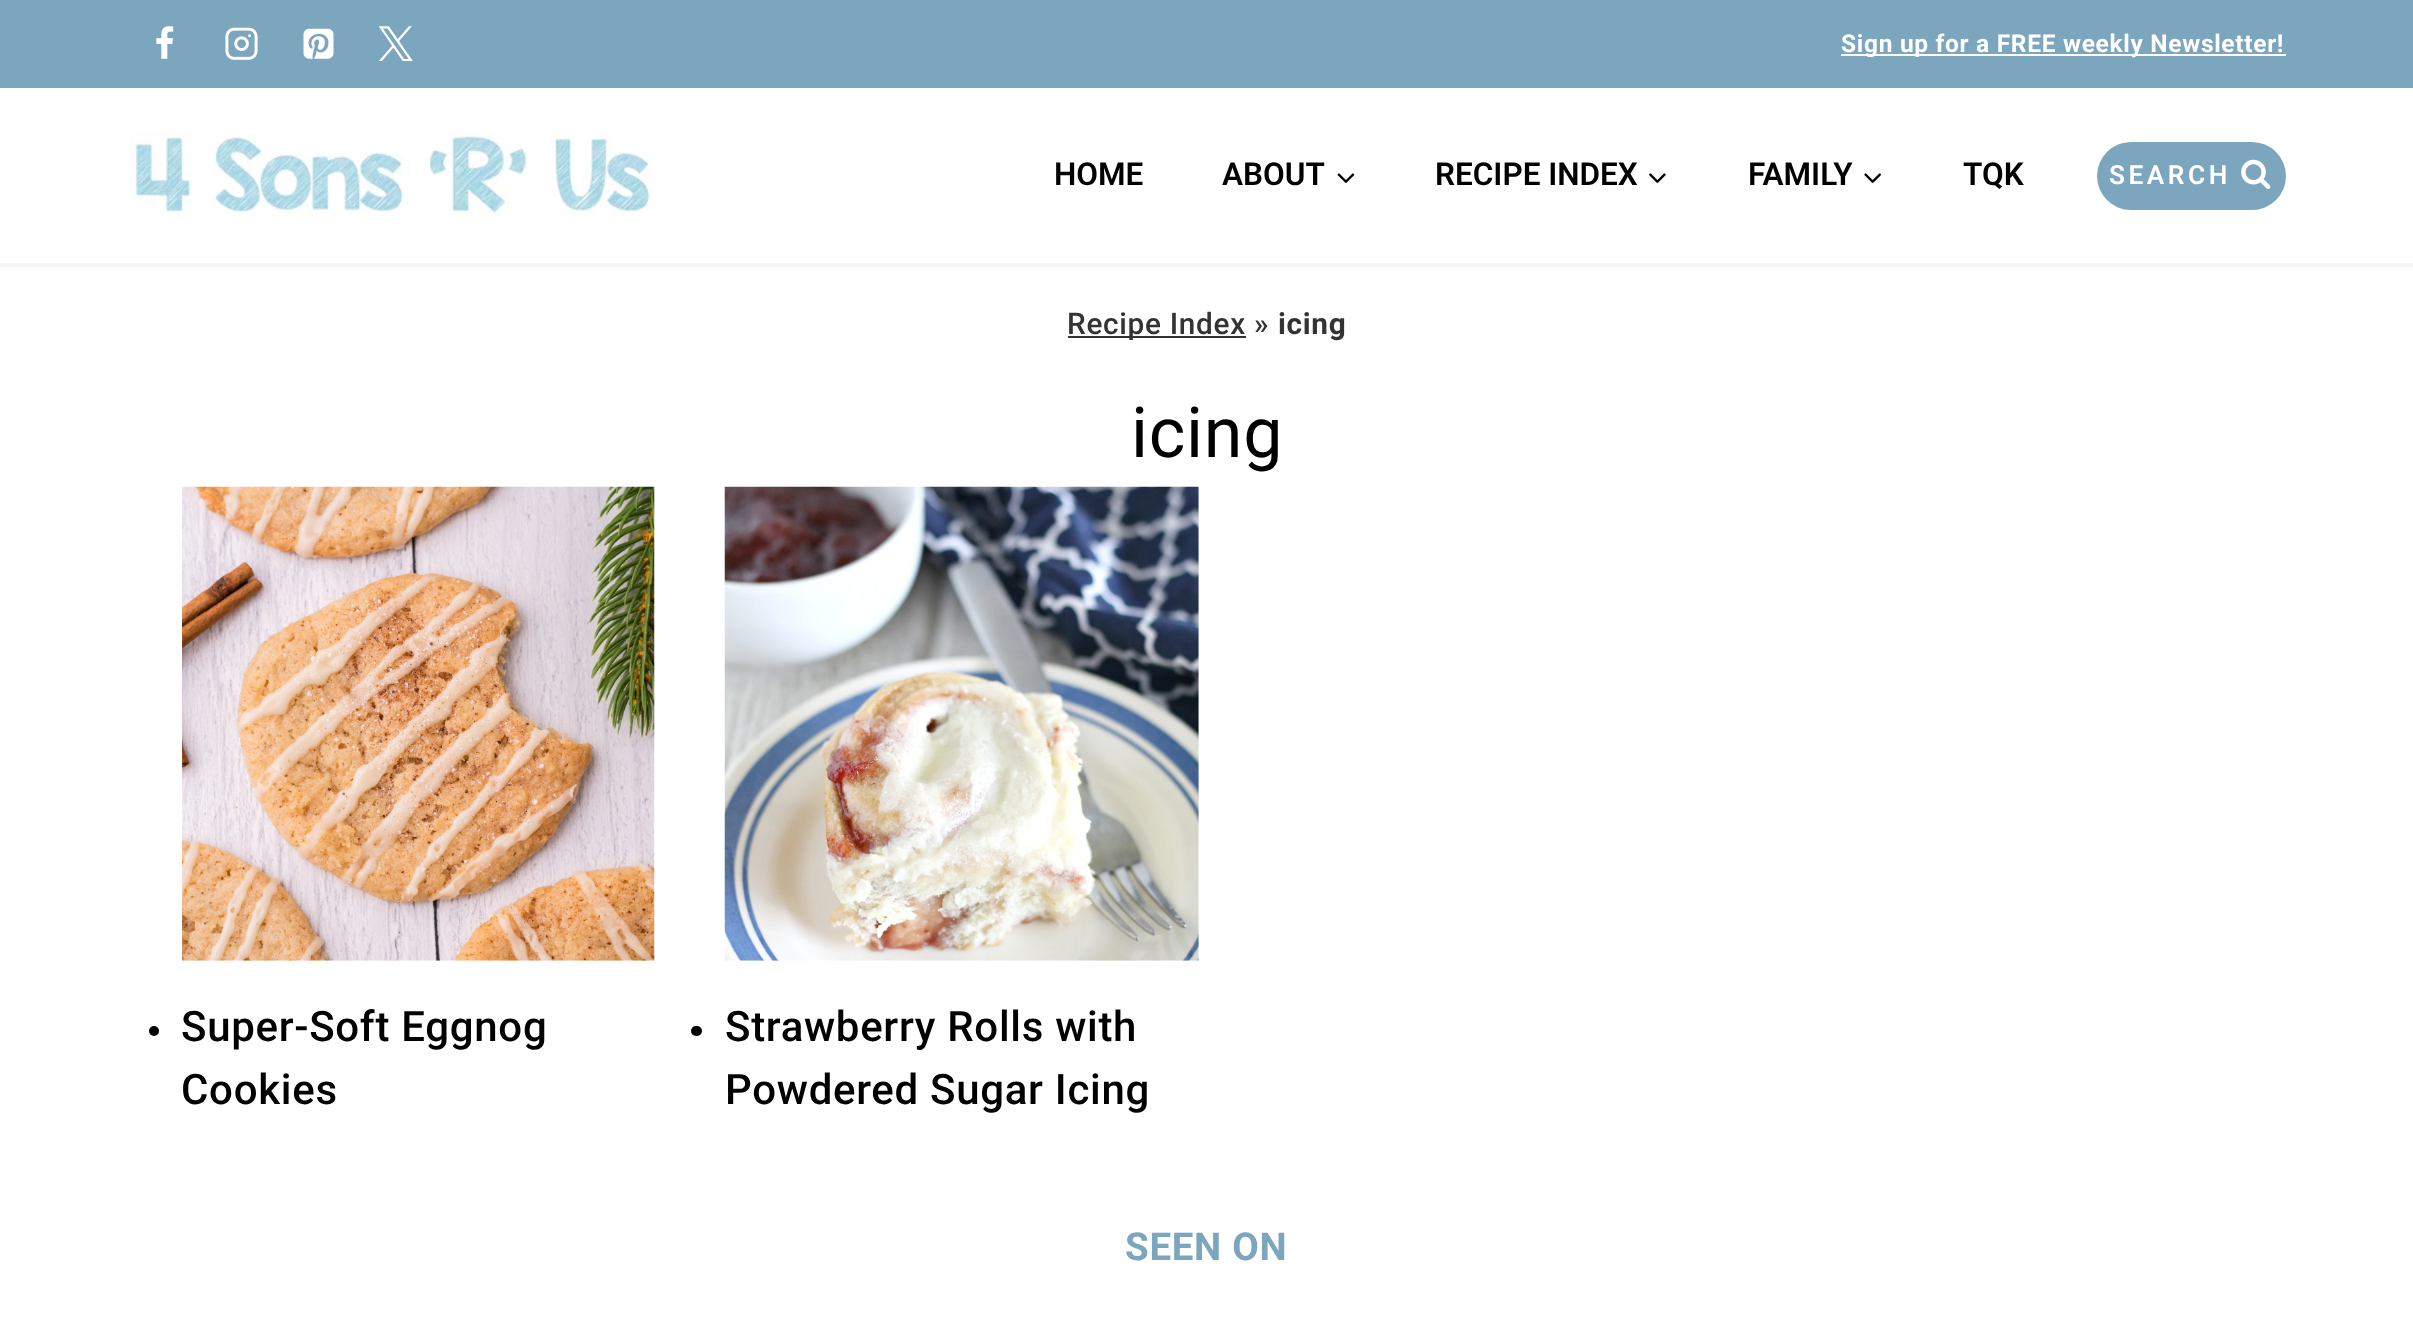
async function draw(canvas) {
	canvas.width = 2413;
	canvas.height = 1334;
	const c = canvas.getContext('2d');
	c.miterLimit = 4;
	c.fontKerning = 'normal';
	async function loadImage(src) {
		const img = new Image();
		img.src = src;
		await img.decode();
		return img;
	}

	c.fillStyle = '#fff';
	c.fillRect(0, 0, 2413, 1334);
	c.fillStyle = '#7ca6bd';
	c.fillRect(0, 0, 2413, 88);
	c.drawImage(await loadImage('img1.png'), 156, 26, 18, 33);
	c.drawImage(await loadImage('img2.png'), 225, 27, 33, 33);
	c.drawImage(await loadImage('img3.png'), 303, 28, 31, 31);
	c.drawImage(await loadImage('img4.png'), 378, 26, 35, 35);
	c.fillStyle = '#fff';
	c.fillRect(1841, 54, 445, 2);
	c.letterSpacing = '0.7px';
	c.font = 'bold 24.5px Roboto';
	c.fillText('Sign up for a FREE weekly Newsletter!', 1841, 52);
	c.fillStyle = '#f5f5f5';
	c.fillRect(0, 263, 2413, 4);
	c.drawImage(await loadImage('img5.png'), 129, 131, 525, 85);
	c.letterSpacing = '0px';
	c.font = '600 31.5px Roboto';
	c.fillStyle = '#000';
	c.fillText('HOME', 1054, 185);
	c.fillText('ABOUT', 1222, 185);
	c.drawImage(await loadImage('img6.png'), 1337, 173, 18, 10);
	c.fillText('RECIPE INDEX', 1435, 185);
	c.drawImage(await loadImage('img7.png'), 1649, 173, 17, 10);
	c.fillText('FAMILY', 1748, 185);
	c.drawImage(await loadImage('img8.png'), 1864, 173, 17, 10);
	c.fillText('TQK', 1963, 185);
	c.fillStyle = '#7ca6bd';
	c.beginPath();
	c.roundRect(2097, 142, 189, 68, 34);
	c.fill();
	c.letterSpacing = '3.5px';
	c.font = '600 26.25px Roboto';
	c.fillStyle = '#fff';
	c.fillText('SEARCH', 2109, 184);
	c.drawImage(await loadImage('img9.png'), 2241, 159, 30, 30);
	c.fillStyle = '#333';
	c.fillRect(1068, 336, 178, 2);
	c.letterSpacing = '0.7px';
	c.font = '500 29.75px Roboto';
	c.fillText('Recipe Index »', 1067, 334);
	c.font = 'bold 29.75px Roboto';
	c.fillText('icing', 1278, 334);
	c.font = '70px Roboto';
	c.fillStyle = '#000';
	c.fillText('icing', 1131, 457);
	c.beginPath();
	c.arc(154, 1031, 5, 0, 2 * Math.PI);
	c.fill();
	c.drawImage(await loadImage('img10.png'), 182, 486, 473, 475);
	c.font = '500 42px Roboto';
	c.fillText('Super-Soft Eggnog', 181, 1041);
	c.fillText('Cookies', 181, 1104);
	c.beginPath();
	c.roundRect(691, 1026, 11, 10, 5);
	c.fill();
	c.drawImage(await loadImage('img11.png'), 724, 486, 475, 475);
	c.fillText('Strawberry Rolls with', 725, 1041);
	c.fillText('Powdered Sugar Icing', 725, 1104);
	c.font = 'bold 38.5px Roboto';
	c.fillStyle = '#7ca6bd';
	c.fillText('SEEN ON', 1125, 1260);
}

draw(document.querySelector('canvas'));
